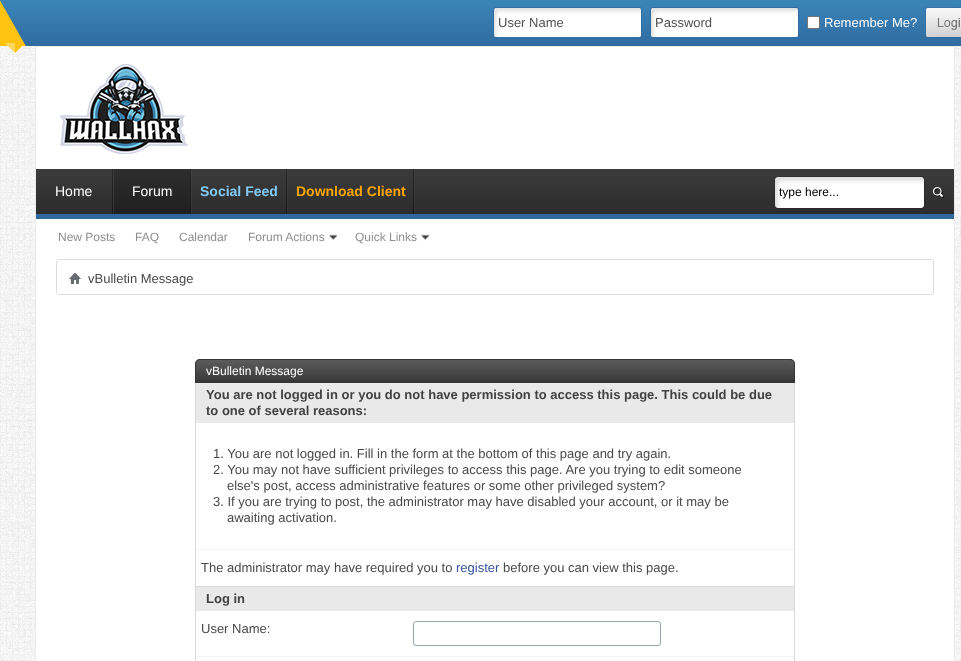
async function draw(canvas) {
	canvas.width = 961;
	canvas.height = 661;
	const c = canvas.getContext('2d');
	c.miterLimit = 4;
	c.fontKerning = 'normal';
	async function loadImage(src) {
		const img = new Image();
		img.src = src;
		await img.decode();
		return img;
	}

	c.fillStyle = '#fff';
	c.fillRect(0, 0, 961, 661);
	c.drawImage(await loadImage('img1.png'), 0, 46, 961, 615);
	c.drawImage(await loadImage('img2.png'), 0, 0, 961, 46);
	c.drawImage(await loadImage('img3.png'), 0, 0, 26, 53);
	c.drawImage(await loadImage('img4.png'), 493, 7, 149, 30);
	c.font = '13px Liberation Sans';
	c.fillStyle = '#515050';
	c.fillText('User Name', 498, 27);
	c.drawImage(await loadImage('img4.png'), 650, 7, 149, 30);
	c.fillText('Password', 655, 27);
	c.fillStyle = '#fff';
	c.beginPath();
	c.roundRect(807.5, 16.5, 12, 12, 1.5);
	c.fill();
	c.strokeStyle = '#767676';
	c.stroke();
	c.fillText('Remember Me?', 824, 27);
	c.drawImage(await loadImage('img5.png'), 925, 7, 36, 31);
	c.beginPath();
	c.rect(35.5, 46.5, 919, 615);
	c.fill();
	c.strokeStyle = '#ebebeb';
	c.stroke();
	c.drawImage(await loadImage('img6.png'), 60, 64, 128, 90);
	c.drawImage(await loadImage('img7.png'), 36, 169, 918, 50);
	c.drawImage(await loadImage('img8.png'), 112, 169, 2, 45);
	c.font = '14px Liberation Sans';
	c.fillText('Home', 55, 196);
	c.drawImage(await loadImage('img8.png'), 190, 169, 2, 45);
	c.drawImage(await loadImage('img9.png'), 114, 169, 76, 45);
	c.fillText('Forum', 132, 196);
	c.drawImage(await loadImage('img8.png'), 286, 169, 2, 45);
	c.font = 'bold 14px Liberation Sans';
	c.fillStyle = '#82cafa';
	c.fillText('Social Feed', 200, 196);
	c.drawImage(await loadImage('img8.png'), 413, 169, 2, 45);
	c.fillStyle = '#ffa500';
	c.fillText('Download Client', 296, 196);
	c.font = '12px Liberation Sans';
	c.fillStyle = '#8e8e8e';
	for (const [text, x, y] of [
		['New Posts', 58, 241],
		['FAQ', 135, 241],
		['Calendar', 179, 241],
		['Forum Actions', 248, 241],
	]) {
		c.fillText(text, x, y);
	}
	c.drawImage(await loadImage('img10.png'), 329, 234, 9, 6);
	c.fillText('Quick Links', 355, 241);
	c.drawImage(await loadImage('img10.png'), 421, 234, 9, 6);
	c.drawImage(await loadImage('img11.png'), 774, 176, 151, 33);
	c.fillStyle = '#000';
	c.fillText('type here...', 779, 196);
	c.drawImage(await loadImage('img12.png'), 933, 187, 11, 11);
	c.beginPath();
	c.roundRect(56.5, 259.5, 877, 35, 2.5);
	c.strokeStyle = '#dedede';
	c.stroke();
	c.drawImage(await loadImage('img13.png'), 69, 272, 12, 12);
	c.font = '13px Liberation Sans';
	c.fillStyle = '#494949';
	c.fillText('vBulletin Message', 88, 283);
	c.fillStyle = '#363636';
	c.beginPath();
	c.roundRect(195, 359, 600, 24, [5, 5, 0, 0]);
	c.fill();
	c.drawImage(await loadImage('img14.png'), 195, 360, 600, 20);
	c.beginPath();
	c.roundRect(195.5, 359.5, 599, 23, [4.5, 4.5, 0, 0]);
	c.strokeStyle = '#363636';
	c.stroke();
	c.font = '12px Liberation Sans';
	c.fillStyle = '#fff';
	c.fillText('vBulletin Message', 206, 375);
	for (const [x, y, w, h, color] of [
		[794, 383, 1, 278, '#d9d9d9'],
		[195, 383, 1, 278, '#d9d9d9'],
		[196, 383, 598, 40, '#e9e9e9'],
	]) {
		c.fillStyle = color;
		c.fillRect(x, y, w, h);
	}
	c.font = 'bold 13px Liberation Sans';
	c.fillStyle = '#424242';
	c.fillText('You are not logged in or you do not have permission to access this page. This could be due', 206, 399);
	c.fillText('to one of several reasons:', 206, 415);
	c.font = '13px Liberation Sans';
	c.fillStyle = '#494949';
	for (const [text, x, y] of [
		['1. You are not logged in. Fill in the form at the bottom of this page and try again.', 213, 458],
		['2. You may not have sufficient privileges to access this page. Are you trying to edit someone', 213, 474],
		['else\'s post, access administrative features or some other privileged system?', 227, 490],
		['3. If you are trying to post, the administrator may have disabled your account, or it may be', 213, 506],
		['awaiting activation.', 227, 522],
	]) {
		c.fillText(text, x, y);
	}
	c.fillStyle = '#f1f3f8';
	c.fillRect(196, 549, 598, 1);
	c.fillStyle = '#494949';
	c.fillText('The administrator may have required you to', 201, 572);
	c.fillStyle = '#33559c';
	c.fillText('register', 456, 572);
	c.fillStyle = '#494949';
	c.fillText('before you can view this page.', 503, 572);
	c.fillStyle = '#e9e9e9';
	c.fillRect(196, 587, 598, 24);
	c.fillStyle = '#d9d9d9';
	c.fillRect(196, 586, 598, 1);
	c.font = 'bold 13px Liberation Sans';
	c.fillStyle = '#424242';
	c.fillText('Log in', 206, 603);
	c.font = '13px Liberation Sans';
	c.fillStyle = '#494949';
	c.fillText('User Name:', 201, 633);
	c.beginPath();
	c.roundRect(413.5, 621.5, 247, 24, 2.5);
	c.strokeStyle = '#97a4aa';
	c.stroke();
	c.fillStyle = '#f1f3f8';
	c.fillRect(196, 656, 598, 1);
}

draw(document.querySelector('canvas'));
